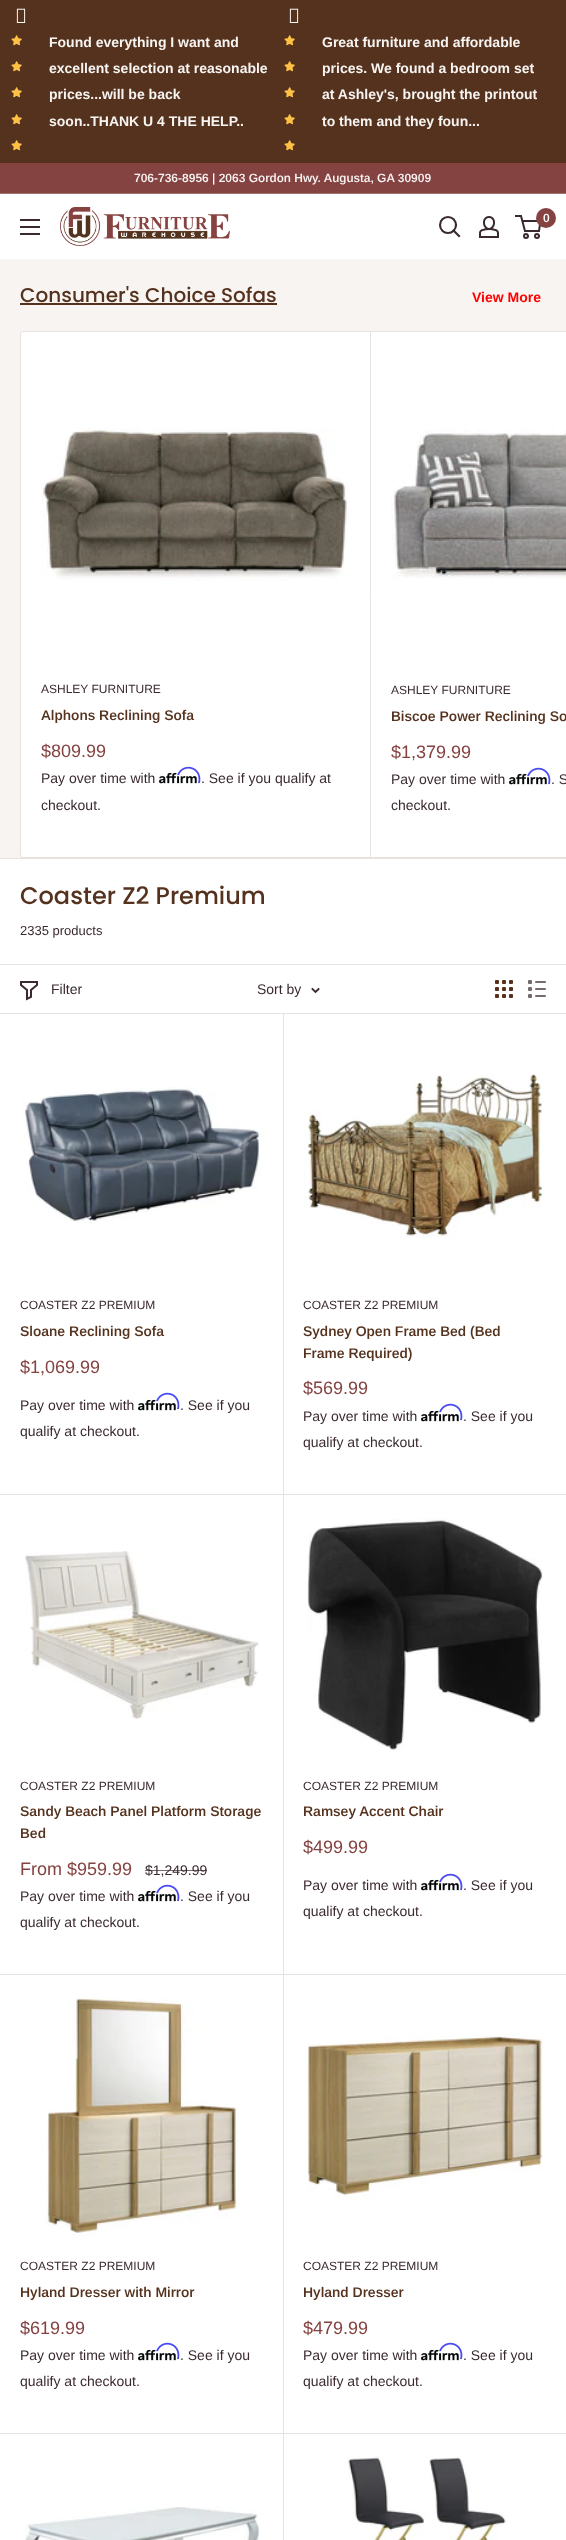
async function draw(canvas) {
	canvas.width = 566;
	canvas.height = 2540;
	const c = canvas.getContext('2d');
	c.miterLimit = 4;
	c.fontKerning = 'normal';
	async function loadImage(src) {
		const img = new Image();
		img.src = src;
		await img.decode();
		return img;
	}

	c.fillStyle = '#f7f4f2';
	c.fillRect(0, 0, 566, 2540);
	c.fillStyle = '#55321e';
	c.fillRect(0, 0, 566, 163);
	c.drawImage(await loadImage('img1.png'), 16, 8, 10, 15);
	c.drawImage(await loadImage('img2.png'), 11, 35, 11, 11);
	c.drawImage(await loadImage('img2.png'), 11, 61, 11, 11);
	c.drawImage(await loadImage('img2.png'), 11, 87, 11, 11);
	c.drawImage(await loadImage('img2.png'), 11, 114, 11, 11);
	c.drawImage(await loadImage('img2.png'), 11, 140, 11, 11);
	c.font = 'bold 14px Arimo';
	c.fillStyle = '#f7f4f2';
	for (const [text, x, y] of [
		['Found everything I want and', 49, 47],
		['excellent selection at reasonable', 49, 73],
		['prices...will be back', 49, 99],
		['soon..THANK U 4 THE HELP..', 49, 126],
	]) {
		c.fillText(text, x, y);
	}
	c.drawImage(await loadImage('img1.png'), 289, 8, 10, 15);
	c.drawImage(await loadImage('img2.png'), 284, 35, 11, 11);
	c.drawImage(await loadImage('img2.png'), 284, 61, 11, 11);
	c.drawImage(await loadImage('img2.png'), 284, 87, 11, 11);
	c.drawImage(await loadImage('img2.png'), 284, 114, 11, 11);
	c.drawImage(await loadImage('img2.png'), 284, 140, 11, 11);
	for (const [text, x, y] of [
		['Great furniture and affordable', 322, 47],
		['prices. We found a bedroom set', 322, 73],
		['at Ashley\'s, brought the printout', 322, 99],
		['to them and they foun...', 322, 126],
	]) {
		c.fillText(text, x, y);
	}
	c.fillStyle = '#844241';
	c.fillRect(0, 163, 566, 30);
	c.fillStyle = '#a27270';
	c.fillRect(0, 193, 566, 1);
	c.font = '600 12px Arimo';
	c.fillStyle = '#f7f4f2';
	c.fillText('706-736-8956 | 2063 Gordon Hwy. Augusta, GA 30909', 134, 182);
	c.fillStyle = '#fff';
	c.fillRect(0, 194, 566, 65);
	c.drawImage(await loadImage('img3.png'), 60, 207, 170, 39);
	c.beginPath();
	c.moveTo(459, 236);
	c.lineTo(453.5, 230.5);
	c.strokeStyle = '#3a2a2f';
	c.lineWidth = 2.1;
	c.lineCap = 'square';
	c.stroke();
	c.beginPath();
	c.arc(448, 225, 8, 0, 2 * Math.PI);
	c.stroke();
	c.drawImage(await loadImage('img4.png'), 479, 216, 20, 22);
	c.beginPath();
	c.arc(526, 236, 2, 0, 2 * Math.PI);
	c.lineWidth = 2;
	c.stroke();
	c.beginPath();
	c.arc(537, 236, 2, 0, 2 * Math.PI);
	c.stroke();
	c.beginPath();
	c.moveTo(522.5, 221);
	c.lineTo(540.5, 221);
	c.lineTo(539, 231);
	c.lineTo(525, 231);
	c.lineTo(521, 216);
	c.lineTo(515, 216);
	c.lineCap = 'butt';
	c.stroke();
	c.fillStyle = '#844241';
	c.beginPath();
	c.arc(546, 218, 10, 0, 2 * Math.PI);
	c.fill();
	c.fillStyle = '#fff';
	c.fillText('0', 543, 222);
	c.drawImage(await loadImage('img5.png'), 20, 219, 20, 16);
	c.font = '500 20px Poppins';
	c.fillStyle = '#55321e';
	c.fillText('Consumer\'s Choice Sofas', 20, 302);
	c.fillRect(20, 303, 257, 2);
	c.font = 'bold 14px Arimo';
	c.fillStyle = '#f00';
	c.fillText('View More', 472, 302);
	c.fillStyle = '#fff';
	c.beginPath();
	c.roundRect(20.5, 331.5, 350, 526, [2.5, 0, 0, 2.5]);
	c.fill();
	c.strokeStyle = '#e7e2de';
	c.lineWidth = 1;
	c.stroke();
	c.drawImage(await loadImage('img6.png'), 41, 428, 308, 153);
	c.font = '12px Arimo';
	c.fillStyle = '#3a2a2f';
	c.fillText('ASHLEY FURNITURE', 41, 693);
	c.font = '600 14px Arimo';
	c.fillStyle = '#55321e';
	c.fillText('Alphons Reclining Sofa', 41, 720);
	c.font = '18px Arimo';
	c.fillStyle = '#844241';
	c.fillText('$809.99', 41, 757);
	c.font = '14px Arimo';
	c.fillStyle = '#3a2a2f';
	c.fillText('Pay over time with', 41, 783);
	c.drawImage(await loadImage('img8.png'), 159, 772, 38, 12);
	c.drawImage(await loadImage('img7.png'), 177, 766, 24, 18);
	c.fillText('. See if you qualify at', 201, 783);
	c.fillText('checkout.', 41, 810);
	c.fillStyle = '#e7e2de';
	c.fillRect(21, 857, 2, 1);
	c.fillStyle = '#fff';
	c.fillRect(371, 332, 195, 525);
	c.fillStyle = '#e7e2de';
	c.beginPath();
	c.moveTo(371, 331);
	c.lineTo(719, 331);
	c.bezierCurveTo(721, 331, 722, 332, 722, 334);
	c.lineTo(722, 855);
	c.bezierCurveTo(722, 857, 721, 858, 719, 858);
	c.lineTo(371, 858);
	c.closePath();
	c.moveTo(371, 332);
	c.lineTo(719, 332);
	c.bezierCurveTo(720, 332, 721, 333, 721, 334);
	c.lineTo(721, 855);
	c.bezierCurveTo(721, 856, 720, 857, 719, 857);
	c.lineTo(371, 857);
	c.closePath();
	c.fill('evenodd');
	c.drawImage(await loadImage('img9.png'), 391, 429, 175, 150);
	c.font = '12px Arimo';
	c.fillStyle = '#3a2a2f';
	c.fillText('ASHLEY FURNITURE', 391, 694);
	c.font = '600 14px Arimo';
	c.fillStyle = '#55321e';
	c.fillText('Biscoe Power Reclining So', 391, 721);
	c.font = '18px Arimo';
	c.fillStyle = '#844241';
	c.fillText('$1,379.99', 391, 758);
	c.font = '14px Arimo';
	c.fillStyle = '#3a2a2f';
	c.fillText('Pay over time with', 391, 784);
	c.drawImage(await loadImage('img8.png'), 509, 773, 38, 12);
	c.drawImage(await loadImage('img7.png'), 527, 767, 24, 18);
	c.fillText('. S', 551, 784);
	c.fillText('checkout.', 391, 810);
	c.fillStyle = '#fff';
	c.fillRect(0, 859, 566, 1681);
	c.fillStyle = '#e7e2de';
	c.fillRect(0, 858, 566, 1);
	c.font = '500 24px Poppins';
	c.fillStyle = '#55321e';
	c.fillText('Coaster Z2 Premium', 20, 904);
	c.font = '13px Arimo';
	c.fillStyle = '#3a2a2f';
	c.fillText('2335 products', 20, 935);
	for (const [x, y, w, h, color] of [
		[0, 964, 566, 1, '#e7e2de'],
		[0, 1494, 566, 1, '#e7e2de'],
		[283, 1013, 1, 961, '#e7e2de'],
		[0, 1013, 566, 1, '#e7e2de'],
	]) {
		c.fillStyle = color;
		c.fillRect(x, y, w, h);
	}
	c.beginPath();
	c.moveTo(37, 985);
	c.lineTo(31, 990);
	c.lineTo(31, 997);
	c.lineTo(27, 999);
	c.lineTo(27, 990);
	c.lineTo(21, 985);
	c.lineTo(21, 982);
	c.lineTo(37, 982);
	c.closePath();
	c.strokeStyle = '#3a2a2f';
	c.lineWidth = 2;
	c.lineCap = 'square';
	c.stroke();
	c.font = '14px Arimo';
	c.fillStyle = '#3a2a2f';
	c.fillText('Filter', 51, 994);
	c.fillText('Sort by', 257, 994);
	c.beginPath();
	c.moveTo(318.5, 989);
	c.lineTo(315.5, 992);
	c.lineTo(312.5, 989);
	c.lineWidth = 1.9;
	c.stroke();
	c.drawImage(await loadImage('img10.png'), 495, 980, 18, 18);
	c.drawImage(await loadImage('img11.png'), 528, 980, 18, 18);
	c.drawImage(await loadImage('img12.png'), 21, 1087, 242, 136);
	c.font = '12px Arimo';
	c.fillText('COASTER Z2 PREMIUM', 20, 1309);
	c.font = '600 14px Arimo';
	c.fillStyle = '#55321e';
	c.fillText('Sloane Reclining Sofa', 20, 1336);
	c.font = '18px Arimo';
	c.fillStyle = '#844241';
	c.fillText('$1,069.99', 20, 1373);
	c.font = '14px Arimo';
	c.fillStyle = '#3a2a2f';
	c.fillText('Pay over time with', 20, 1410);
	c.drawImage(await loadImage('img8.png'), 138, 1399, 38, 12);
	c.drawImage(await loadImage('img13.png'), 156, 1392, 24, 18);
	c.fillText('. See if you', 180, 1410);
	c.fillText('qualify at checkout.', 20, 1436);
	c.drawImage(await loadImage('img14.png'), 303, 1074, 240, 164);
	c.font = '12px Arimo';
	c.fillText('COASTER Z2 PREMIUM', 303, 1309);
	c.font = '600 14px Arimo';
	c.fillStyle = '#55321e';
	c.fillText('Sydney Open Frame Bed (Bed', 303, 1336);
	c.fillText('Frame Required)', 303, 1358);
	c.font = '18px Arimo';
	c.fillStyle = '#844241';
	c.fillText('$569.99', 303, 1394);
	c.font = '14px Arimo';
	c.fillStyle = '#3a2a2f';
	c.fillText('Pay over time with', 303, 1421);
	c.drawImage(await loadImage('img8.png'), 421, 1410, 38, 12);
	c.drawImage(await loadImage('img13.png'), 439, 1403, 24, 18);
	c.fillText('. See if you', 463, 1421);
	c.fillText('qualify at checkout.', 303, 1447);
	c.drawImage(await loadImage('img15.png'), 25, 1551, 234, 168);
	c.font = '12px Arimo';
	c.fillText('COASTER Z2 PREMIUM', 20, 1790);
	c.font = '600 14px Arimo';
	c.fillStyle = '#55321e';
	c.fillText('Sandy Beach Panel Platform Storage', 20, 1816);
	c.fillText('Bed', 20, 1838);
	c.font = '18px Arimo';
	c.fillStyle = '#844241';
	c.fillText('From $959.99', 20, 1875);
	c.font = '14px Arimo';
	c.fillStyle = '#3a2a2f';
	c.fillText('$1,249.99', 145, 1875);
	c.fillStyle = '#3a2a2fb3';
	c.fillRect(145, 1870, 62, 1);
	c.fillStyle = '#3a2a2f';
	c.fillText('Pay over time with', 20, 1901);
	c.drawImage(await loadImage('img8.png'), 138, 1890, 38, 12);
	c.drawImage(await loadImage('img7.png'), 156, 1884, 24, 18);
	c.fillText('. See if you', 180, 1901);
	c.fillText('qualify at checkout.', 20, 1927);
	c.fillStyle = '#e7e2de';
	c.fillRect(0, 1974, 566, 1);
	c.drawImage(await loadImage('img16.png'), 307, 1518, 236, 232);
	c.font = '12px Arimo';
	c.fillStyle = '#3a2a2f';
	c.fillText('COASTER Z2 PREMIUM', 303, 1790);
	c.font = '600 14px Arimo';
	c.fillStyle = '#55321e';
	c.fillText('Ramsey Accent Chair', 303, 1816);
	c.font = '18px Arimo';
	c.fillStyle = '#844241';
	c.fillText('$499.99', 303, 1853);
	c.font = '14px Arimo';
	c.fillStyle = '#3a2a2f';
	c.fillText('Pay over time with', 303, 1890);
	c.drawImage(await loadImage('img8.png'), 421, 1879, 38, 12);
	c.drawImage(await loadImage('img7.png'), 439, 1873, 24, 18);
	c.fillText('. See if you', 463, 1890);
	c.fillText('qualify at checkout.', 303, 1916);
	c.fillStyle = '#e7e2de';
	c.fillRect(0, 2433, 566, 1);
	c.fillRect(283, 1974, 1, 566);
	c.drawImage(await loadImage('img17.png'), 46, 1998, 193, 239);
	c.font = '12px Arimo';
	c.fillStyle = '#3a2a2f';
	c.fillText('COASTER Z2 PREMIUM', 20, 2270);
	c.font = '600 14px Arimo';
	c.fillStyle = '#55321e';
	c.fillText('Hyland Dresser with Mirror', 20, 2297);
	c.font = '18px Arimo';
	c.fillStyle = '#844241';
	c.fillText('$619.99', 20, 2334);
	c.font = '14px Arimo';
	c.fillStyle = '#3a2a2f';
	c.fillText('Pay over time with', 20, 2360);
	c.drawImage(await loadImage('img8.png'), 138, 2349, 38, 12);
	c.drawImage(await loadImage('img13.png'), 156, 2342, 24, 18);
	c.fillText('. See if you', 180, 2360);
	c.fillText('qualify at checkout.', 20, 2386);
	c.drawImage(await loadImage('img18.png'), 307, 2034, 236, 165);
	c.font = '12px Arimo';
	c.fillText('COASTER Z2 PREMIUM', 303, 2270);
	c.font = '600 14px Arimo';
	c.fillStyle = '#55321e';
	c.fillText('Hyland Dresser', 303, 2297);
	c.font = '18px Arimo';
	c.fillStyle = '#844241';
	c.fillText('$479.99', 303, 2334);
	c.font = '14px Arimo';
	c.fillStyle = '#3a2a2f';
	c.fillText('Pay over time with', 303, 2360);
	c.drawImage(await loadImage('img8.png'), 421, 2349, 38, 12);
	c.drawImage(await loadImage('img13.png'), 439, 2342, 24, 18);
	c.fillText('. See if you', 463, 2360);
	c.fillText('qualify at checkout.', 303, 2386);
	c.drawImage(await loadImage('img19.png'), 25, 2507, 235, 33);
	c.drawImage(await loadImage('img20.png'), 348, 2454, 159, 86);
}

draw(document.querySelector('canvas'));
